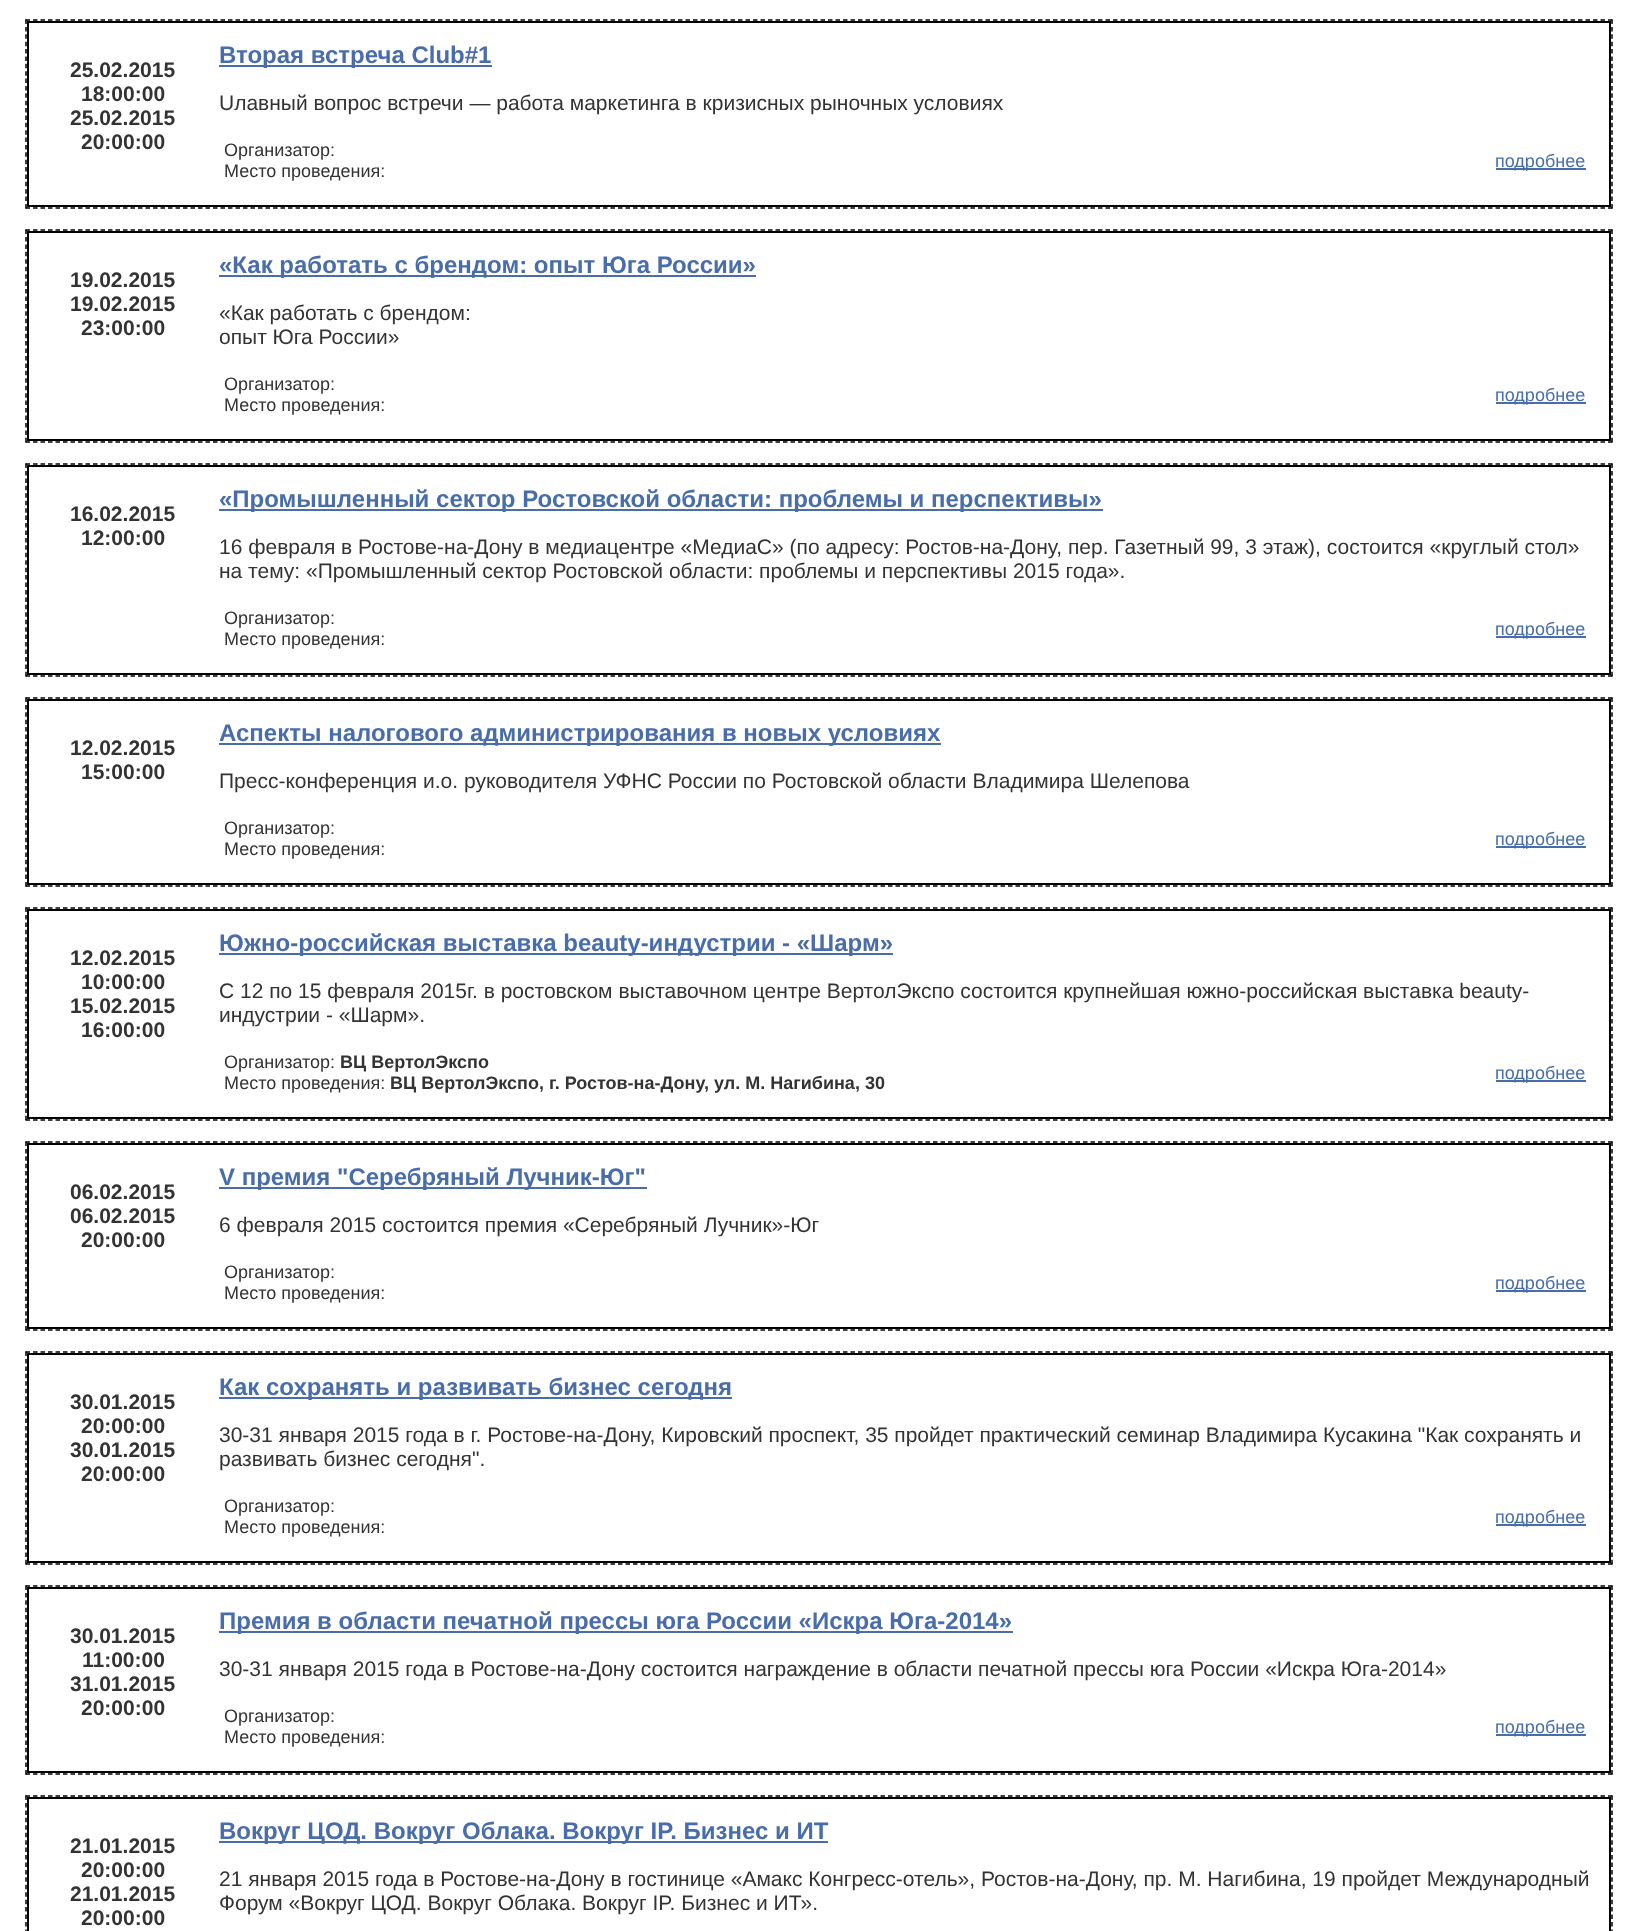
async function draw(canvas) {
	canvas.width = 1637;
	canvas.height = 1931;
	const c = canvas.getContext('2d');
	c.miterLimit = 4;
	c.fontKerning = 'normal';

	c.fillStyle = '#fff';
	c.fillRect(0, 0, 1637, 1931);
	c.beginPath();
	c.moveTo(25.5, 20);
	c.lineTo(1612.5, 20);
	c.strokeStyle = '#000';
	c.lineWidth = 1.5;
	c.setLineDash([4.5, 3]);
	c.stroke();
	c.beginPath();
	c.moveTo(1612, 19.5);
	c.lineTo(1612, 208.5);
	c.setLineDash([4.5, 2.88]);
	c.stroke();
	c.beginPath();
	c.moveTo(25.5, 208);
	c.lineTo(1612.5, 208);
	c.setLineDash([4.5, 3]);
	c.stroke();
	c.beginPath();
	c.moveTo(26, 19.5);
	c.lineTo(26, 208.5);
	c.setLineDash([4.5, 2.88]);
	c.stroke();
	c.lineWidth = 2;
	c.setLineDash([]);
	c.strokeRect(28, 22, 1582, 184);
	c.font = 'bold 21px Liberation Sans';
	c.fillStyle = '#333';
	for (const [text, x, y] of [
		['25.02.2015', 70, 77],
		['18:00:00', 81, 101],
		['25.02.2015', 70, 125],
		['20:00:00', 81, 149],
	]) {
		c.fillText(text, x, y);
	}
	c.fillStyle = '#486daa';
	c.fillRect(219, 65, 273, 2);
	c.font = 'bold 24px Liberation Sans';
	c.fillText('Вторая встреча Club#1', 219, 63);
	c.font = '21px Liberation Sans';
	c.fillStyle = '#333';
	c.fillText('Uлавный вопрос встречи — работа маркетинга в кризисных рыночных условиях', 219, 110);
	c.font = '18px Liberation Sans';
	c.fillText('Организатор:', 224, 156);
	c.fillText('Место проведения:', 224, 177);
	c.fillStyle = '#486daa';
	c.fillRect(1496, 168, 90, 2);
	c.fillText('подробнее', 1495, 167);
	c.beginPath();
	c.moveTo(25.5, 230);
	c.lineTo(1612.5, 230);
	c.lineWidth = 1.5;
	c.setLineDash([4.5, 3]);
	c.stroke();
	c.beginPath();
	c.moveTo(1612, 229.5);
	c.lineTo(1612, 442.5);
	c.setLineDash([4.5, 2.94]);
	c.stroke();
	c.beginPath();
	c.moveTo(25.5, 442);
	c.lineTo(1612.5, 442);
	c.setLineDash([4.5, 3]);
	c.stroke();
	c.beginPath();
	c.moveTo(26, 229.5);
	c.lineTo(26, 442.5);
	c.setLineDash([4.5, 2.94]);
	c.stroke();
	c.lineWidth = 2;
	c.setLineDash([]);
	c.strokeRect(28, 232, 1582, 208);
	c.font = 'bold 21px Liberation Sans';
	c.fillStyle = '#333';
	for (const [text, x, y] of [
		['19.02.2015', 70, 287],
		['19.02.2015', 70, 311],
		['23:00:00', 81, 335],
	]) {
		c.fillText(text, x, y);
	}
	c.fillStyle = '#486daa';
	c.fillRect(219, 275, 537, 2);
	c.font = 'bold 24px Liberation Sans';
	c.fillText('«Как работать с брендом: опыт Юга России»', 219, 273);
	c.font = '21px Liberation Sans';
	c.fillStyle = '#333';
	c.fillText('«Как работать с брендом:', 219, 320);
	c.fillText('опыт Юга России»', 219, 344);
	c.font = '18px Liberation Sans';
	c.fillText('Организатор:', 224, 390);
	c.fillText('Место проведения:', 224, 411);
	c.fillStyle = '#486daa';
	c.fillRect(1496, 402, 90, 2);
	c.fillText('подробнее', 1495, 401);
	c.beginPath();
	c.moveTo(25.5, 464);
	c.lineTo(1612.5, 464);
	c.lineWidth = 1.5;
	c.setLineDash([4.5, 3]);
	c.stroke();
	c.beginPath();
	c.moveTo(1612, 463.5);
	c.lineTo(1612, 676.5);
	c.setLineDash([4.5, 2.94]);
	c.stroke();
	c.beginPath();
	c.moveTo(25.5, 676);
	c.lineTo(1612.5, 676);
	c.setLineDash([4.5, 3]);
	c.stroke();
	c.beginPath();
	c.moveTo(26, 463.5);
	c.lineTo(26, 676.5);
	c.setLineDash([4.5, 2.94]);
	c.stroke();
	c.lineWidth = 2;
	c.setLineDash([]);
	c.strokeRect(28, 466, 1582, 208);
	c.font = 'bold 21px Liberation Sans';
	c.fillStyle = '#333';
	c.fillText('16.02.2015', 70, 521);
	c.fillText('12:00:00', 81, 545);
	c.fillStyle = '#486daa';
	c.fillRect(219, 509, 884, 2);
	c.font = 'bold 24px Liberation Sans';
	c.fillText('«Промышленный сектор Ростовской области: проблемы и перспективы»', 219, 507);
	c.font = '21px Liberation Sans';
	c.fillStyle = '#333';
	c.fillText('16 февраля в Ростове-на-Дону в медиацентре «МедиаС» (по адресу: Ростов-на-Дону, пер. Газетный 99, 3 этаж), состоится «круглый стол»', 219, 554);
	c.fillText('на тему: «Промышленный сектор Ростовской области: проблемы и перспективы 2015 года».', 219, 578);
	c.font = '18px Liberation Sans';
	c.fillText('Организатор:', 224, 624);
	c.fillText('Место проведения:', 224, 645);
	c.fillStyle = '#486daa';
	c.fillRect(1496, 636, 90, 2);
	c.fillText('подробнее', 1495, 635);
	c.beginPath();
	c.moveTo(25.5, 698);
	c.lineTo(1612.5, 698);
	c.lineWidth = 1.5;
	c.setLineDash([4.5, 3]);
	c.stroke();
	c.beginPath();
	c.moveTo(1612, 697.5);
	c.lineTo(1612, 886.5);
	c.setLineDash([4.5, 2.88]);
	c.stroke();
	c.beginPath();
	c.moveTo(25.5, 886);
	c.lineTo(1612.5, 886);
	c.setLineDash([4.5, 3]);
	c.stroke();
	c.beginPath();
	c.moveTo(26, 697.5);
	c.lineTo(26, 886.5);
	c.setLineDash([4.5, 2.88]);
	c.stroke();
	c.lineWidth = 2;
	c.setLineDash([]);
	c.strokeRect(28, 700, 1582, 184);
	c.font = 'bold 21px Liberation Sans';
	c.fillStyle = '#333';
	c.fillText('12.02.2015', 70, 755);
	c.fillText('15:00:00', 81, 779);
	c.fillStyle = '#486daa';
	c.fillRect(219, 743, 722, 2);
	c.font = 'bold 24px Liberation Sans';
	c.fillText('Аспекты налогового администрирования в новых условиях', 219, 741);
	c.font = '21px Liberation Sans';
	c.fillStyle = '#333';
	c.fillText('Пресс-конференция и.о. руководителя УФНС России по Ростовской области Владимира Шелепова', 219, 788);
	c.font = '18px Liberation Sans';
	c.fillText('Организатор:', 224, 834);
	c.fillText('Место проведения:', 224, 855);
	c.fillStyle = '#486daa';
	c.fillRect(1496, 846, 90, 2);
	c.fillText('подробнее', 1495, 845);
	c.beginPath();
	c.moveTo(25.5, 908);
	c.lineTo(1612.5, 908);
	c.lineWidth = 1.5;
	c.setLineDash([4.5, 3]);
	c.stroke();
	c.beginPath();
	c.moveTo(1612, 907.5);
	c.lineTo(1612, 1120.5);
	c.setLineDash([4.5, 2.94]);
	c.stroke();
	c.beginPath();
	c.moveTo(25.5, 1120);
	c.lineTo(1612.5, 1120);
	c.setLineDash([4.5, 3]);
	c.stroke();
	c.beginPath();
	c.moveTo(26, 907.5);
	c.lineTo(26, 1120.5);
	c.setLineDash([4.5, 2.94]);
	c.stroke();
	c.lineWidth = 2;
	c.setLineDash([]);
	c.strokeRect(28, 910, 1582, 208);
	c.font = 'bold 21px Liberation Sans';
	c.fillStyle = '#333';
	for (const [text, x, y] of [
		['12.02.2015', 70, 965],
		['10:00:00', 81, 989],
		['15.02.2015', 70, 1013],
		['16:00:00', 81, 1037],
	]) {
		c.fillText(text, x, y);
	}
	c.fillStyle = '#486daa';
	c.fillRect(219, 953, 674, 2);
	c.font = 'bold 24px Liberation Sans';
	c.fillText('Южно-российская выставка beauty-индустрии - «Шарм»', 219, 951);
	c.font = '21px Liberation Sans';
	c.fillStyle = '#333';
	c.fillText('С 12 по 15 февраля 2015г. в ростовском выставочном центре ВертолЭкспо состоится крупнейшая южно-российская выставка beauty-', 219, 998);
	c.fillText('индустрии - «Шарм».', 219, 1022);
	c.font = '18px Liberation Sans';
	c.fillText('Организатор:', 224, 1068);
	c.font = 'bold 18px Liberation Sans';
	c.fillText('ВЦ ВертолЭкспо', 340, 1068);
	c.font = '18px Liberation Sans';
	c.fillText('Место проведения:', 224, 1089);
	c.font = 'bold 18px Liberation Sans';
	c.fillText('ВЦ ВертолЭкспо, г. Ростов-на-Дону, ул. М. Нагибина, 30', 390, 1089);
	c.fillStyle = '#486daa';
	c.fillRect(1496, 1080, 90, 2);
	c.font = '18px Liberation Sans';
	c.fillText('подробнее', 1495, 1079);
	c.beginPath();
	c.moveTo(25.5, 1142);
	c.lineTo(1612.5, 1142);
	c.lineWidth = 1.5;
	c.setLineDash([4.5, 3]);
	c.stroke();
	c.beginPath();
	c.moveTo(1612, 1141.5);
	c.lineTo(1612, 1330.5);
	c.setLineDash([4.5, 2.88]);
	c.stroke();
	c.beginPath();
	c.moveTo(25.5, 1330);
	c.lineTo(1612.5, 1330);
	c.setLineDash([4.5, 3]);
	c.stroke();
	c.beginPath();
	c.moveTo(26, 1141.5);
	c.lineTo(26, 1330.5);
	c.setLineDash([4.5, 2.88]);
	c.stroke();
	c.lineWidth = 2;
	c.setLineDash([]);
	c.strokeRect(28, 1144, 1582, 184);
	c.font = 'bold 21px Liberation Sans';
	c.fillStyle = '#333';
	for (const [text, x, y] of [
		['06.02.2015', 70, 1199],
		['06.02.2015', 70, 1223],
		['20:00:00', 81, 1247],
	]) {
		c.fillText(text, x, y);
	}
	c.fillStyle = '#486daa';
	c.fillRect(219, 1187, 428, 2);
	c.font = 'bold 24px Liberation Sans';
	c.fillText('V премия "Серебряный Лучник-Юг"', 219, 1185);
	c.font = '21px Liberation Sans';
	c.fillStyle = '#333';
	c.fillText('6 февраля 2015 состоится премия «Серебряный Лучник»-Юг', 219, 1232);
	c.font = '18px Liberation Sans';
	c.fillText('Организатор:', 224, 1278);
	c.fillText('Место проведения:', 224, 1299);
	c.fillStyle = '#486daa';
	c.fillRect(1496, 1290, 90, 2);
	c.fillText('подробнее', 1495, 1289);
	c.beginPath();
	c.moveTo(25.5, 1352);
	c.lineTo(1612.5, 1352);
	c.lineWidth = 1.5;
	c.setLineDash([4.5, 3]);
	c.stroke();
	c.beginPath();
	c.moveTo(1612, 1351.5);
	c.lineTo(1612, 1564.5);
	c.setLineDash([4.5, 2.94]);
	c.stroke();
	c.beginPath();
	c.moveTo(25.5, 1564);
	c.lineTo(1612.5, 1564);
	c.setLineDash([4.5, 3]);
	c.stroke();
	c.beginPath();
	c.moveTo(26, 1351.5);
	c.lineTo(26, 1564.5);
	c.setLineDash([4.5, 2.94]);
	c.stroke();
	c.lineWidth = 2;
	c.setLineDash([]);
	c.strokeRect(28, 1354, 1582, 208);
	c.font = 'bold 21px Liberation Sans';
	c.fillStyle = '#333';
	for (const [text, x, y] of [
		['30.01.2015', 70, 1409],
		['20:00:00', 81, 1433],
		['30.01.2015', 70, 1457],
		['20:00:00', 81, 1481],
	]) {
		c.fillText(text, x, y);
	}
	c.fillStyle = '#486daa';
	c.fillRect(219, 1397, 513, 2);
	c.font = 'bold 24px Liberation Sans';
	c.fillText('Как сохранять и развивать бизнес сегодня', 219, 1395);
	c.font = '21px Liberation Sans';
	c.fillStyle = '#333';
	c.fillText('30-31 января 2015 года в г. Ростове-на-Дону, Кировский проспект, 35 пройдет практический семинар Владимира Кусакина "Как сохранять и', 219, 1442);
	c.fillText('развивать бизнес сегодня".', 219, 1466);
	c.font = '18px Liberation Sans';
	c.fillText('Организатор:', 224, 1512);
	c.fillText('Место проведения:', 224, 1533);
	c.fillStyle = '#486daa';
	c.fillRect(1496, 1524, 90, 2);
	c.fillText('подробнее', 1495, 1523);
	c.beginPath();
	c.moveTo(25.5, 1586);
	c.lineTo(1612.5, 1586);
	c.lineWidth = 1.5;
	c.setLineDash([4.5, 3]);
	c.stroke();
	c.beginPath();
	c.moveTo(1612, 1585.5);
	c.lineTo(1612, 1774.5);
	c.setLineDash([4.5, 2.88]);
	c.stroke();
	c.beginPath();
	c.moveTo(25.5, 1774);
	c.lineTo(1612.5, 1774);
	c.setLineDash([4.5, 3]);
	c.stroke();
	c.beginPath();
	c.moveTo(26, 1585.5);
	c.lineTo(26, 1774.5);
	c.setLineDash([4.5, 2.88]);
	c.stroke();
	c.lineWidth = 2;
	c.setLineDash([]);
	c.strokeRect(28, 1588, 1582, 184);
	c.font = 'bold 21px Liberation Sans';
	c.fillStyle = '#333';
	for (const [text, x, y] of [
		['30.01.2015', 70, 1643],
		['11:00:00', 82, 1667],
		['31.01.2015', 70, 1691],
		['20:00:00', 81, 1715],
	]) {
		c.fillText(text, x, y);
	}
	c.fillStyle = '#486daa';
	c.fillRect(219, 1631, 794, 2);
	c.font = 'bold 24px Liberation Sans';
	c.fillText('Премия в области печатной прессы юга России «Искра Юга-2014»', 219, 1629);
	c.font = '21px Liberation Sans';
	c.fillStyle = '#333';
	c.fillText('30-31 января 2015 года в Ростове-на-Дону состоится награждение в области печатной прессы юга России «Искра Юга-2014»', 219, 1676);
	c.font = '18px Liberation Sans';
	c.fillText('Организатор:', 224, 1722);
	c.fillText('Место проведения:', 224, 1743);
	c.fillStyle = '#486daa';
	c.fillRect(1496, 1734, 90, 2);
	c.fillText('подробнее', 1495, 1733);
	c.beginPath();
	c.moveTo(25.5, 1796);
	c.lineTo(1612.5, 1796);
	c.lineWidth = 1.5;
	c.setLineDash([4.5, 3]);
	c.stroke();
	c.beginPath();
	c.moveTo(1612, 1795.5);
	c.lineTo(1612, 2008.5);
	c.setLineDash([4.5, 2.94]);
	c.stroke();
	c.beginPath();
	c.moveTo(26, 1795.5);
	c.lineTo(26, 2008.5);
	c.stroke();
	c.lineWidth = 2;
	c.setLineDash([]);
	c.strokeRect(28, 1798, 1582, 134);
	c.font = 'bold 21px Liberation Sans';
	c.fillStyle = '#333';
	for (const [text, x, y] of [
		['21.01.2015', 70, 1853],
		['20:00:00', 81, 1877],
		['21.01.2015', 70, 1901],
		['20:00:00', 81, 1925],
	]) {
		c.fillText(text, x, y);
	}
	c.fillStyle = '#486daa';
	c.fillRect(219, 1841, 609, 2);
	c.font = 'bold 24px Liberation Sans';
	c.fillText('Вокруг ЦОД. Вокруг Облака. Вокруг IP. Бизнес и ИТ', 219, 1839);
	c.font = '21px Liberation Sans';
	c.fillStyle = '#333';
	c.fillText('21 января 2015 года в Ростове-на-Дону в гостинице «Амакс Конгресс-отель», Ростов-на-Дону, пр. М. Нагибина, 19 пройдет Международный', 219, 1886);
	c.fillText('Форум «Вокруг ЦОД. Вокруг Облака. Вокруг IP. Бизнес и ИТ».', 219, 1910);
}

draw(document.querySelector('canvas'));
